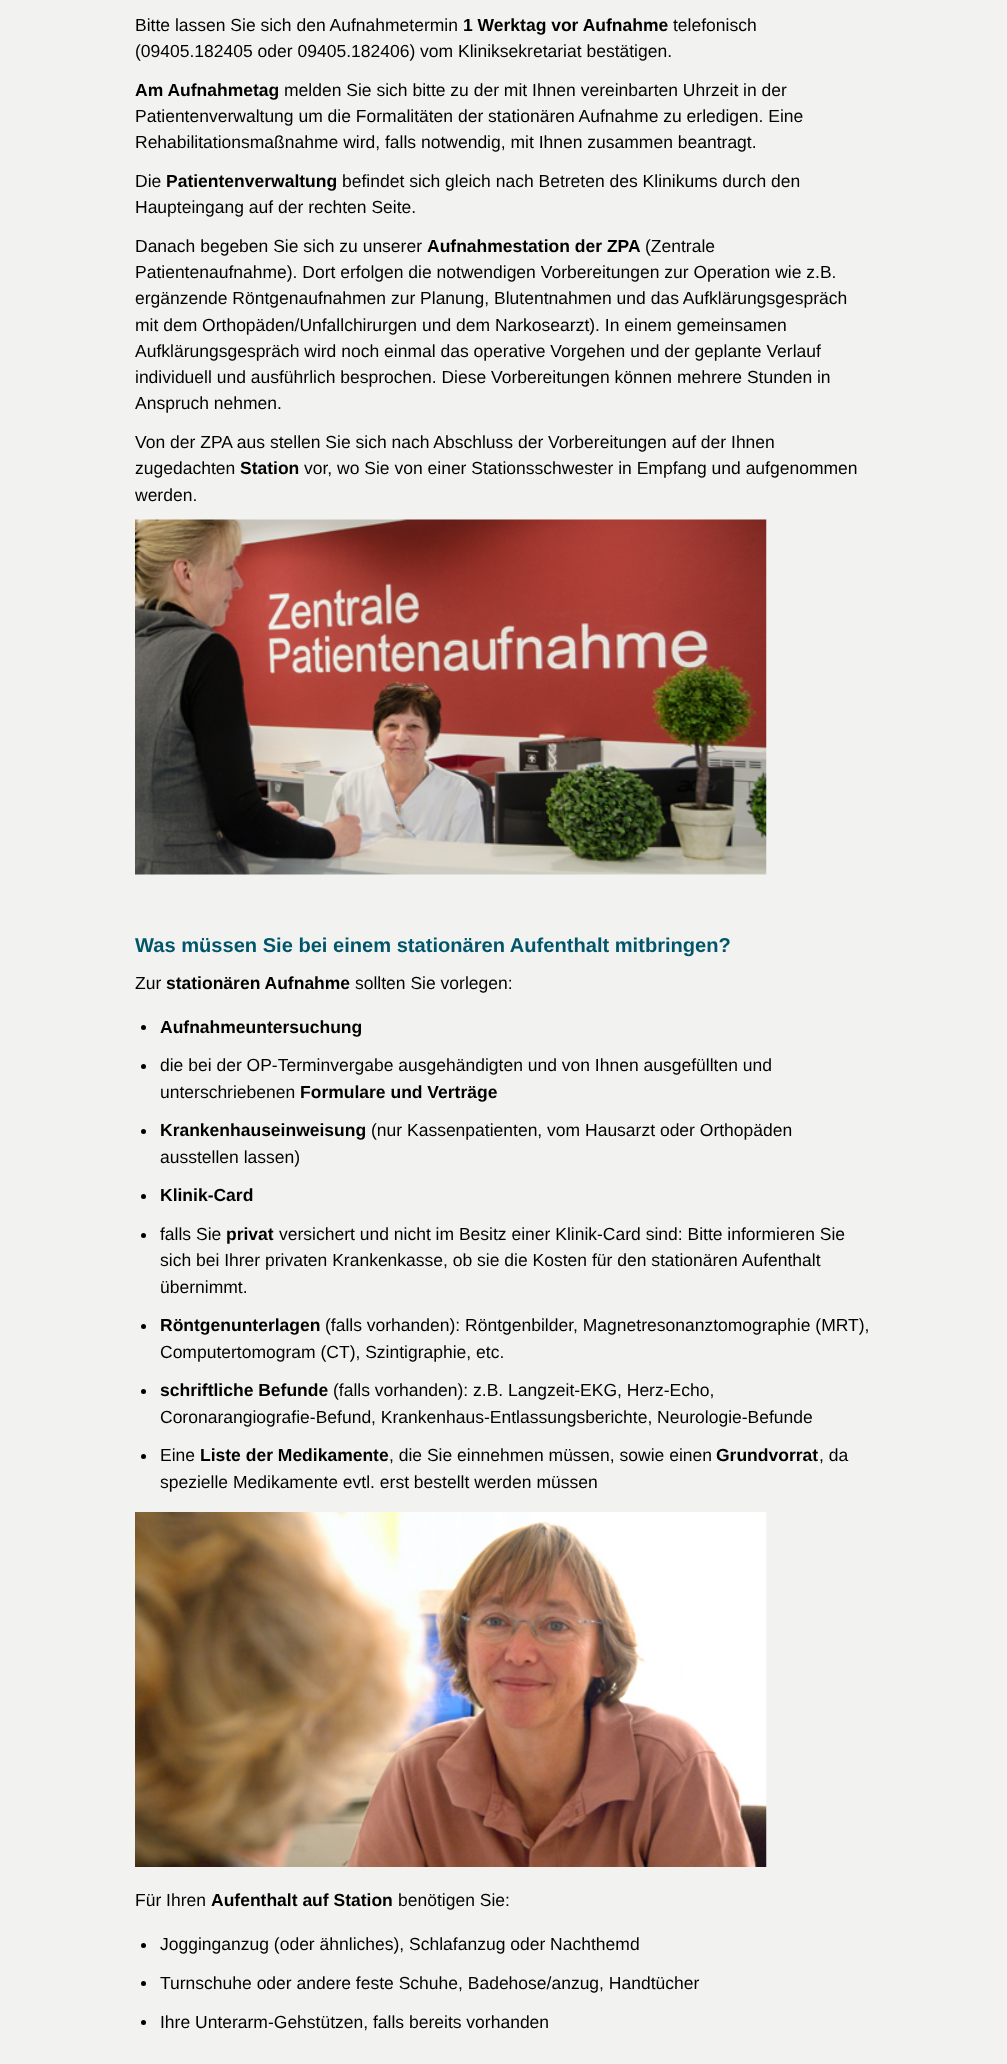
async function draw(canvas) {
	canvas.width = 1007;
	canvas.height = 2064;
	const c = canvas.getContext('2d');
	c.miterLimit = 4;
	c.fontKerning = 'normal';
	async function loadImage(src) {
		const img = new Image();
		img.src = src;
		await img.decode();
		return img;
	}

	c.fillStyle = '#f2f2f1';
	c.fillRect(0, 0, 1007, 2064);
	c.font = '17.5px Liberation Sans';
	c.fillStyle = '#000';
	c.fillText('Bitte lassen Sie sich den Aufnahmetermin', 135, 31);
	c.font = 'bold 17.5px Liberation Sans';
	c.fillText('1 Werktag vor Aufnahme', 463, 31);
	c.font = '17.5px Liberation Sans';
	c.fillText('telefonisch', 673, 31);
	c.fillText('(09405.182405 oder 09405.182406) vom Kliniksekretariat bestätigen.', 135, 57);
	c.font = 'bold 17.5px Liberation Sans';
	c.fillText('Am Aufnahmetag', 135, 96);
	c.font = '17.5px Liberation Sans';
	for (const [text, x, y] of [
		['melden Sie sich bitte zu der mit Ihnen vereinbarten Uhrzeit in der', 284, 96],
		['Patientenverwaltung um die Formalitäten der stationären Aufnahme zu erledigen. Eine', 135, 122],
		['Rehabilitationsmaßnahme wird, falls notwendig, mit Ihnen zusammen beantragt.', 135, 148],
		['Die', 135, 187],
	]) {
		c.fillText(text, x, y);
	}
	c.font = 'bold 17.5px Liberation Sans';
	c.fillText('Patientenverwaltung', 166, 187);
	c.font = '17.5px Liberation Sans';
	for (const [text, x, y] of [
		['befindet sich gleich nach Betreten des Klinikums durch den', 342, 187],
		['Haupteingang auf der rechten Seite.', 135, 213],
		['Danach begeben Sie sich zu unserer', 135, 252],
	]) {
		c.fillText(text, x, y);
	}
	c.font = 'bold 17.5px Liberation Sans';
	c.fillText('Aufnahmestation der ZPA', 427, 252);
	c.font = '17.5px Liberation Sans';
	for (const [text, x, y] of [
		['(Zentrale', 645, 252],
		['Patientenaufnahme). Dort erfolgen die notwendigen Vorbereitungen zur Operation wie z.B.', 135, 278],
		['ergänzende Röntgenaufnahmen zur Planung, Blutentnahmen und das Aufklärungsgespräch', 135, 304],
		['mit dem Orthopäden/Unfallchirurgen und dem Narkosearzt). In einem gemeinsamen', 135, 331],
		['Aufklärungsgespräch wird noch einmal das operative Vorgehen und der geplante Verlauf', 135, 357],
		['individuell und ausführlich besprochen. Diese Vorbereitungen können mehrere Stunden in', 135, 383],
		['Anspruch nehmen.', 135, 409],
		['Von der ZPA aus stellen Sie sich nach Abschluss der Vorbereitungen auf der Ihnen', 135, 448],
		['zugedachten', 135, 474],
	]) {
		c.fillText(text, x, y);
	}
	c.font = 'bold 17.5px Liberation Sans';
	c.fillText('Station', 240, 474);
	c.font = '17.5px Liberation Sans';
	c.fillText('vor, wo Sie von einer Stationsschwester in Empfang und aufgenommen', 304, 474);
	c.fillText('werden.', 135, 501);
	c.drawImage(await loadImage('img1.png'), 135, 519, 632, 356);
	c.font = 'bold 20.1px Liberation Sans';
	c.fillStyle = '#00556a';
	c.fillText('Was müssen Sie bei einem stationären Aufenthalt mitbringen?', 135, 952);
	c.font = '17.5px Liberation Sans';
	c.fillStyle = '#000';
	c.fillText('Zur', 135, 989);
	c.font = 'bold 17.5px Liberation Sans';
	c.fillText('stationären Aufnahme', 166, 989);
	c.font = '17.5px Liberation Sans';
	c.fillText('sollten Sie vorlegen:', 355, 989);
	c.beginPath();
	c.arc(143.5, 1027.5, 2.5, 0, 2 * Math.PI);
	c.fill();
	c.font = 'bold 17.5px Liberation Sans';
	c.fillText('Aufnahmeuntersuchung', 160, 1033);
	c.beginPath();
	c.arc(143.5, 1066.5, 2.5, 0, 2 * Math.PI);
	c.fill();
	c.font = '17.5px Liberation Sans';
	c.fillText('die bei der OP-Terminvergabe ausgehändigten und von Ihnen ausgefüllten und', 160, 1071);
	c.fillText('unterschriebenen', 160, 1098);
	c.font = 'bold 17.5px Liberation Sans';
	c.fillText('Formulare und Verträge', 300, 1098);
	c.beginPath();
	c.arc(143.5, 1131.5, 2.5, 0, 2 * Math.PI);
	c.fill();
	c.fillText('Krankenhauseinweisung', 160, 1136);
	c.font = '17.5px Liberation Sans';
	c.fillText('(nur Kassenpatienten, vom Hausarzt oder Orthopäden', 371, 1136);
	c.fillText('ausstellen lassen)', 160, 1163);
	c.beginPath();
	c.arc(143.5, 1196.5, 2.5, 0, 2 * Math.PI);
	c.fill();
	c.font = 'bold 17.5px Liberation Sans';
	c.fillText('Klinik-Card', 160, 1201);
	c.beginPath();
	c.arc(143.5, 1235.5, 2.5, 0, 2 * Math.PI);
	c.fill();
	c.font = '17.5px Liberation Sans';
	c.fillText('falls Sie', 160, 1240);
	c.font = 'bold 17.5px Liberation Sans';
	c.fillText('privat', 226, 1240);
	c.font = '17.5px Liberation Sans';
	for (const [text, x, y] of [
		['versichert und nicht im Besitz einer Klinik-Card sind: Bitte informieren Sie', 279, 1240],
		['sich bei Ihrer privaten Krankenkasse, ob sie die Kosten für den stationären Aufenthalt', 160, 1266],
		['übernimmt.', 160, 1293],
	]) {
		c.fillText(text, x, y);
	}
	c.beginPath();
	c.arc(143.5, 1326.5, 2.5, 0, 2 * Math.PI);
	c.fill();
	c.font = 'bold 17.5px Liberation Sans';
	c.fillText('Röntgenunterlagen', 160, 1331);
	c.font = '17.5px Liberation Sans';
	c.fillText('(falls vorhanden): Röntgenbilder, Magnetresonanztomographie (MRT),', 325, 1331);
	c.fillText('Computertomogram (CT), Szintigraphie, etc.', 160, 1358);
	c.beginPath();
	c.arc(143.5, 1391.5, 2.5, 0, 2 * Math.PI);
	c.fill();
	c.font = 'bold 17.5px Liberation Sans';
	c.fillText('schriftliche Befunde', 160, 1396);
	c.font = '17.5px Liberation Sans';
	c.fillText('(falls vorhanden): z.B. Langzeit-EKG, Herz-Echo,', 333, 1396);
	c.fillText('Coronarangiografie-Befund, Krankenhaus-Entlassungsberichte, Neurologie-Befunde', 160, 1423);
	c.beginPath();
	c.arc(143.5, 1456.5, 2.5, 0, 2 * Math.PI);
	c.fill();
	c.fillText('Eine', 160, 1461);
	c.font = 'bold 17.5px Liberation Sans';
	c.fillText('Liste der Medikamente', 200, 1461);
	c.font = '17.5px Liberation Sans';
	c.fillText(', die Sie einnehmen müssen, sowie einen', 389, 1461);
	c.font = 'bold 17.5px Liberation Sans';
	c.fillText('Grundvorrat', 716, 1461);
	c.font = '17.5px Liberation Sans';
	c.fillText(', da', 819, 1461);
	c.fillText('spezielle Medikamente evtl. erst bestellt werden müssen', 160, 1488);
	c.drawImage(await loadImage('img2.png'), 135, 1512, 632, 355);
	c.fillText('Für Ihren', 135, 1906);
	c.font = 'bold 17.5px Liberation Sans';
	c.fillText('Aufenthalt auf Station', 211, 1906);
	c.font = '17.5px Liberation Sans';
	c.fillText('benötigen Sie:', 398, 1906);
	c.beginPath();
	c.arc(143.5, 1945.5, 2.5, 0, 2 * Math.PI);
	c.fill();
	c.fillText('Jogginganzug (oder ähnliches), Schlafanzug oder Nachthemd', 160, 1950);
	c.beginPath();
	c.arc(143.5, 1983.5, 2.5, 0, 2 * Math.PI);
	c.fill();
	c.fillText('Turnschuhe oder andere feste Schuhe, Badehose/anzug, Handtücher', 160, 1989);
	c.beginPath();
	c.arc(143.5, 2022.5, 2.5, 0, 2 * Math.PI);
	c.fill();
	c.fillText('Ihre Unterarm-Gehstützen, falls bereits vorhanden', 160, 2028);
}

draw(document.querySelector('canvas'));
